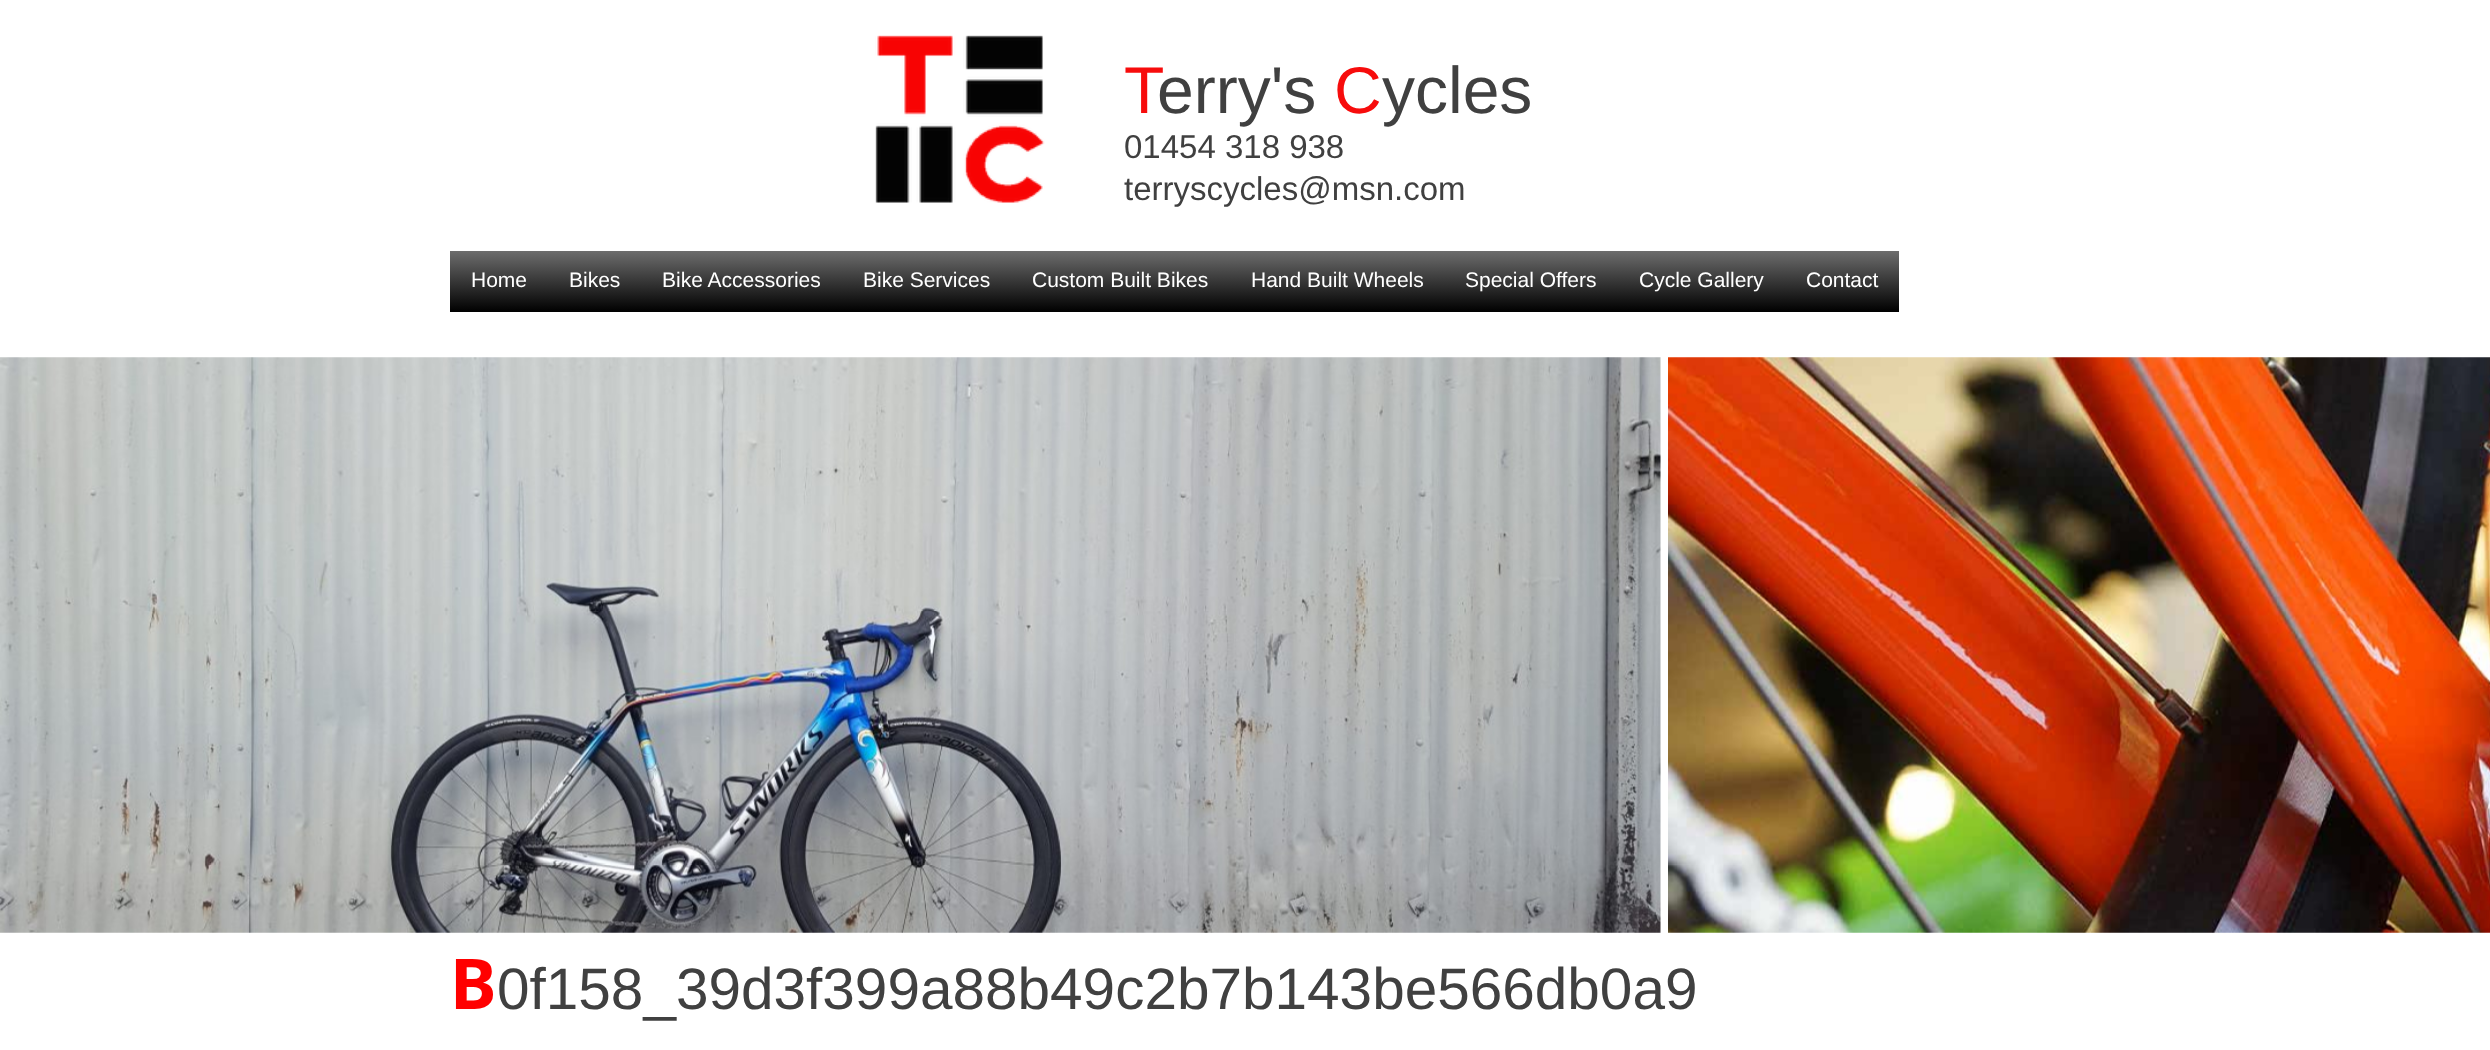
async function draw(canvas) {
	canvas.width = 2490;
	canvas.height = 1050;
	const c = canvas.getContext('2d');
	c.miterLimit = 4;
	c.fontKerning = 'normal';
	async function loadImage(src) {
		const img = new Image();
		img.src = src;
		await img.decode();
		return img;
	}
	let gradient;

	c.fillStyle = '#fff';
	c.fillRect(0, 0, 2490, 1050);
	c.drawImage(await loadImage('img1.png'), 875, 35, 170, 168);
	c.font = '66px Liberation Sans';
	c.fillStyle = '#f70c0c';
	c.fillText('T', 1124, 113);
	c.fillStyle = '#404040';
	c.fillText('erry\'s', 1157, 113);
	c.fillStyle = '#f70c0c';
	c.fillText('C', 1334, 113);
	c.fillStyle = '#404040';
	c.fillText('ycles', 1382, 113);
	c.font = '33px Liberation Sans';
	c.fillText('01454 318 938', 1124, 158);
	c.fillText('terryscycles@msn.com', 1124, 200);
	gradient = c.createLinearGradient(450, 251, 450, 312);
	gradient.addColorStop(0, '#6d6d6d');
	gradient.addColorStop(1, '#000');
	c.fillStyle = gradient;
	c.fillRect(450, 251, 98, 61);
	c.font = '21px Liberation Sans';
	c.fillStyle = '#fff';
	c.fillText('Home', 471, 287);
	gradient = c.createLinearGradient(548, 251, 548, 312);
	gradient.addColorStop(0, '#6d6d6d');
	gradient.addColorStop(1, '#000');
	c.fillStyle = gradient;
	c.fillRect(548, 251, 94, 61);
	c.fillStyle = '#fff';
	c.fillText('Bikes', 569, 287);
	gradient = c.createLinearGradient(642, 251, 642, 312);
	gradient.addColorStop(0, '#6d6d6d');
	gradient.addColorStop(1, '#000');
	c.fillStyle = gradient;
	c.fillRect(642, 251, 200, 61);
	c.fillStyle = '#fff';
	c.fillText('Bike Accessories', 662, 287);
	gradient = c.createLinearGradient(842, 251, 842, 312);
	gradient.addColorStop(0, '#6d6d6d');
	gradient.addColorStop(1, '#000');
	c.fillStyle = gradient;
	c.fillRect(842, 251, 169, 61);
	c.fillStyle = '#fff';
	c.fillText('Bike Services', 863, 287);
	gradient = c.createLinearGradient(1011, 251, 1011, 312);
	gradient.addColorStop(0, '#6d6d6d');
	gradient.addColorStop(1, '#000');
	c.fillStyle = gradient;
	c.fillRect(1011, 251, 219, 61);
	c.fillStyle = '#fff';
	c.fillText('Custom Built Bikes', 1032, 287);
	gradient = c.createLinearGradient(1230, 251, 1230, 312);
	gradient.addColorStop(0, '#6d6d6d');
	gradient.addColorStop(1, '#000');
	c.fillStyle = gradient;
	c.fillRect(1230, 251, 215, 61);
	c.fillStyle = '#fff';
	c.fillText('Hand Built Wheels', 1251, 287);
	gradient = c.createLinearGradient(1445, 251, 1445, 312);
	gradient.addColorStop(0, '#6d6d6d');
	gradient.addColorStop(1, '#000');
	c.fillStyle = gradient;
	c.fillRect(1445, 251, 174, 61);
	c.fillStyle = '#fff';
	c.fillText('Special Offers', 1465, 287);
	gradient = c.createLinearGradient(1619, 251, 1619, 312);
	gradient.addColorStop(0, '#6d6d6d');
	gradient.addColorStop(1, '#000');
	c.fillStyle = gradient;
	c.fillRect(1619, 251, 166, 61);
	c.fillStyle = '#fff';
	c.fillText('Cycle Gallery', 1639, 287);
	gradient = c.createLinearGradient(1785, 251, 1785, 312);
	gradient.addColorStop(0, '#6d6d6d');
	gradient.addColorStop(1, '#000');
	c.fillStyle = gradient;
	c.fillRect(1785, 251, 114, 61);
	c.fillStyle = '#fff';
	c.fillText('Contact', 1806, 287);
	c.drawImage(await loadImage('img2.png'), 0, 357, 1661, 576);
	c.drawImage(await loadImage('img3.png'), 1668, 357, 822, 576);
	c.font = 'bold 70px Noto Sans';
	c.fillStyle = '#f00';
	c.fillText('B', 450, 1009);
	c.font = '58.5px Liberation Sans';
	c.fillStyle = '#404040';
	c.fillText('0f158_39d3f399a88b49c2b7b143be566db0a9', 497, 1009);
}

draw(document.querySelector('canvas'));
